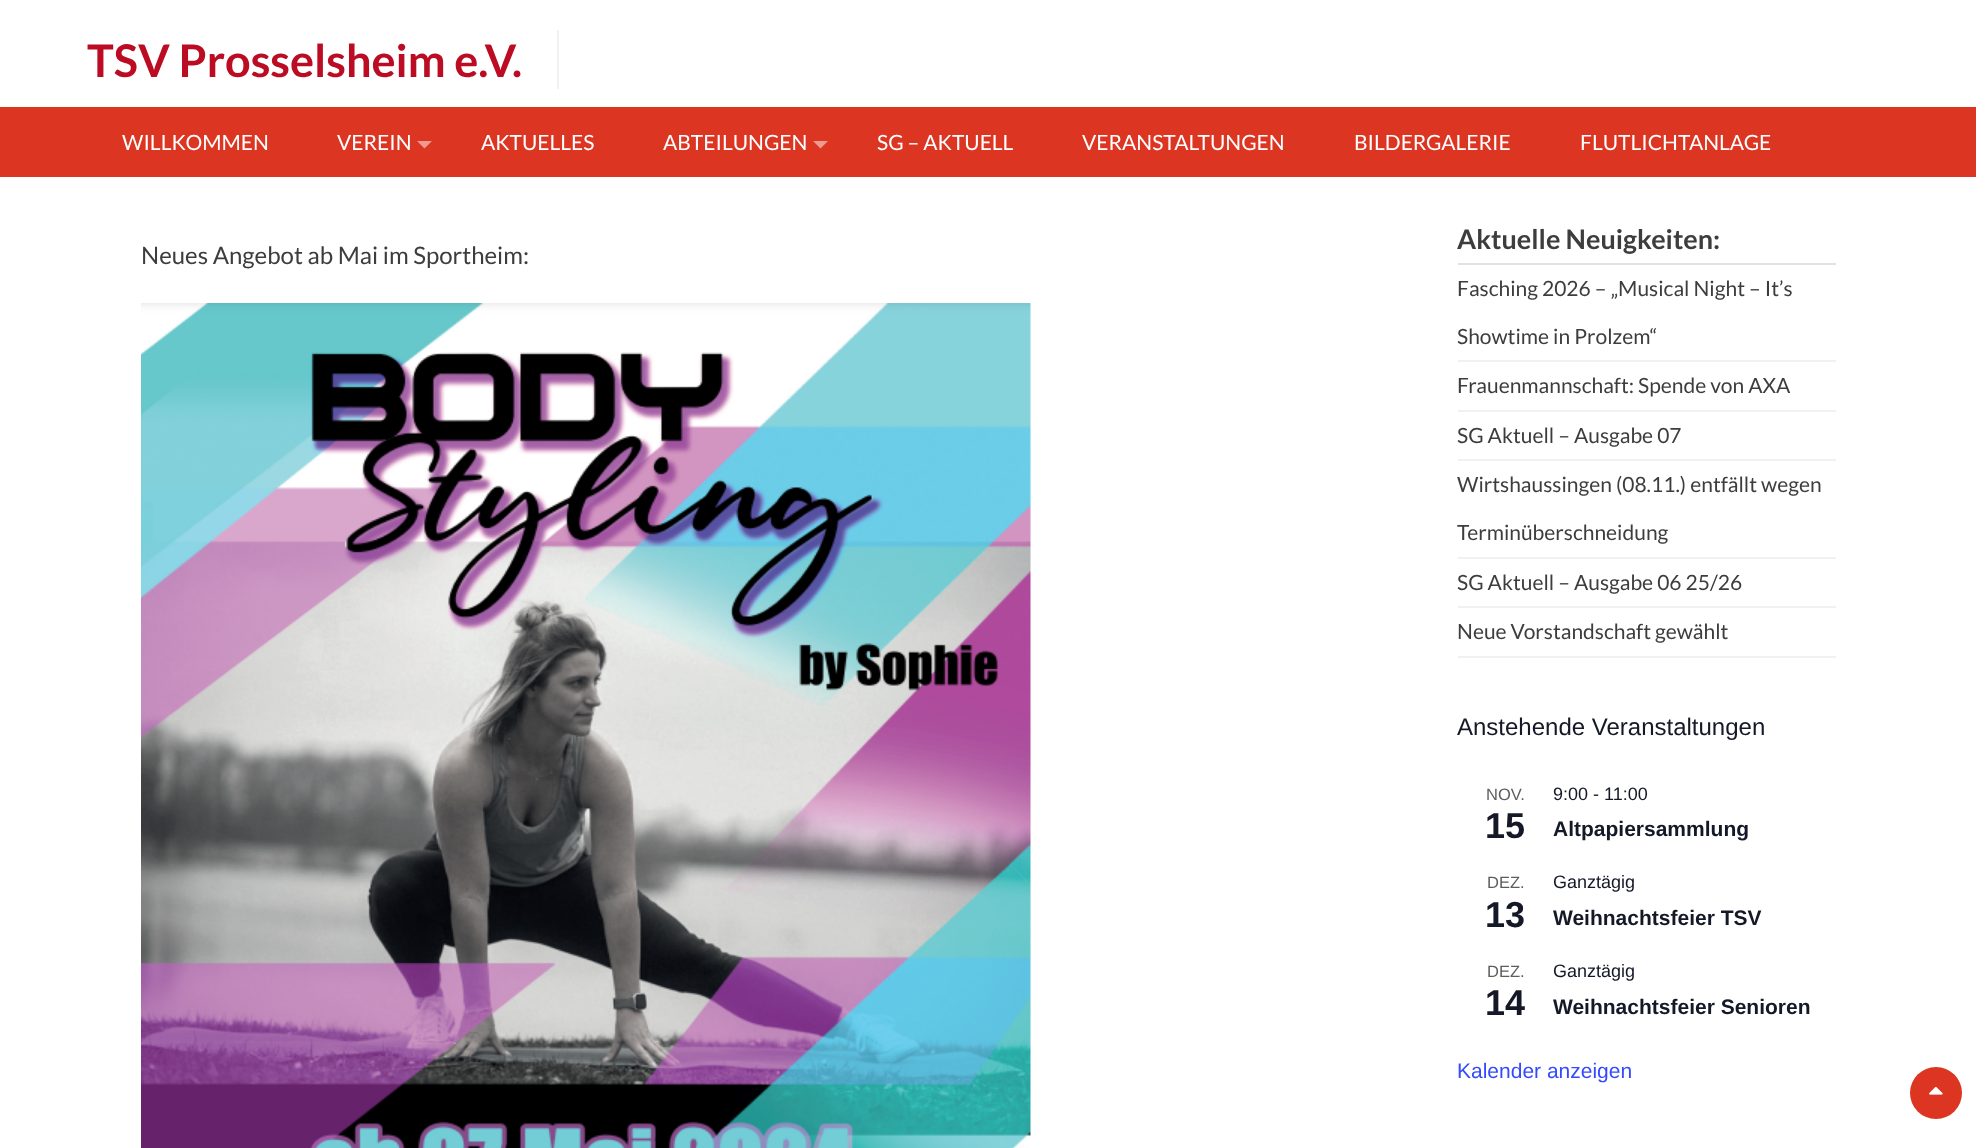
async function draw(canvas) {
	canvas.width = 1976;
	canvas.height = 1148;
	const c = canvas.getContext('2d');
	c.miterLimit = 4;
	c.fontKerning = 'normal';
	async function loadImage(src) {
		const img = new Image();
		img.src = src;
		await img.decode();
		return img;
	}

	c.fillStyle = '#fff';
	c.fillRect(0, 0, 1976, 1148);
	c.fillStyle = '#f1f1f1';
	c.fillRect(557, 30, 2, 59);
	c.font = 'bold 45px Lato';
	c.fillStyle = '#bc0c23';
	c.fillText('TSV Prosselsheim e.V.', 87, 77);
	c.fillStyle = '#dc3522';
	c.fillRect(0, 107, 1976, 70);
	c.font = '21px Lato';
	c.fillStyle = '#fff';
	c.fillText('WILLKOMMEN', 122, 150);
	c.fillText('VEREIN', 337, 150);
	c.fillStyle = '#ee9a91';
	c.beginPath();
	c.moveTo(417, 141);
	c.lineTo(432, 141);
	c.lineTo(424.5, 148.5);
	c.closePath();
	c.fill();
	c.fillStyle = '#fff';
	c.fillText('AKTUELLES', 481, 150);
	c.fillText('ABTEILUNGEN', 663, 150);
	c.fillStyle = '#ee9a91';
	c.beginPath();
	c.moveTo(813, 141);
	c.lineTo(828, 141);
	c.lineTo(820.5, 148.5);
	c.closePath();
	c.fill();
	c.fillStyle = '#fff';
	for (const [text, x, y] of [
		['SG – AKTUELL', 877, 150],
		['VERANSTALTUNGEN', 1082, 150],
		['BILDERGALERIE', 1354, 150],
		['FLUTLICHTANLAGE', 1580, 150],
	]) {
		c.fillText(text, x, y);
	}
	c.font = '24px Lato';
	c.fillStyle = '#3d3d3d';
	c.fillText('Neues Angebot ab Mai im Sportheim:', 141, 264);
	c.drawImage(await loadImage('img1.png'), 141, 303, 890, 845);
	c.fillStyle = '#e2e2e2';
	c.fillRect(1458, 263, 378, 2);
	c.font = 'bold 27px Lato';
	c.fillStyle = '#3d3d3d';
	c.fillText('Aktuelle Neuigkeiten:', 1457, 249);
	c.fillStyle = '#f1f1f1';
	c.fillRect(1458, 360, 378, 2);
	c.font = '21px Lato';
	c.fillStyle = '#3d3d3d';
	c.fillText('Fasching 2026 – „Musical Night – It’s', 1457, 296);
	c.fillText('Showtime in Prolzem“', 1457, 344);
	c.fillStyle = '#f1f1f1';
	c.fillRect(1458, 410, 378, 2);
	c.fillStyle = '#3d3d3d';
	c.fillText('Frauenmannschaft: Spende von AXA', 1457, 393);
	c.fillStyle = '#f1f1f1';
	c.fillRect(1458, 459, 378, 2);
	c.fillStyle = '#3d3d3d';
	c.fillText('SG Aktuell – Ausgabe 07', 1457, 443);
	c.fillStyle = '#f1f1f1';
	c.fillRect(1458, 557, 378, 2);
	c.fillStyle = '#3d3d3d';
	c.fillText('Wirtshaussingen (08.11.) entfällt wegen', 1457, 492);
	c.fillText('Terminüberschneidung', 1457, 540);
	c.fillStyle = '#f1f1f1';
	c.fillRect(1458, 606, 378, 2);
	c.fillStyle = '#3d3d3d';
	c.fillText('SG Aktuell – Ausgabe 06 25/26', 1457, 590);
	c.fillStyle = '#f1f1f1';
	c.fillRect(1458, 656, 378, 2);
	c.fillStyle = '#3d3d3d';
	c.fillText('Neue Vorstandschaft gewählt', 1457, 639);
	c.font = '24px Liberation Sans';
	c.fillStyle = '#141827';
	c.fillText('Anstehende Veranstaltungen', 1457, 735);
	c.font = '16.5px Liberation Sans';
	c.fillStyle = '#5d5d5d';
	c.fillText('NOV.', 1486, 800);
	c.font = 'bold 36px Liberation Sans';
	c.fillStyle = '#141827';
	c.fillText('15', 1485, 838);
	c.font = '18px Liberation Sans';
	c.fillText('9:00 - 11:00', 1553, 800);
	c.font = 'bold 21px Liberation Sans';
	c.fillText('Altpapiersammlung', 1553, 836);
	c.font = '16.5px Liberation Sans';
	c.fillStyle = '#5d5d5d';
	c.fillText('DEZ.', 1487, 888);
	c.font = 'bold 36px Liberation Sans';
	c.fillStyle = '#141827';
	c.fillText('13', 1485, 927);
	c.font = '18px Liberation Sans';
	c.fillText('Ganztägig', 1553, 888);
	c.font = 'bold 21px Liberation Sans';
	c.fillText('Weihnachtsfeier TSV', 1553, 925);
	c.font = '16.5px Liberation Sans';
	c.fillStyle = '#5d5d5d';
	c.fillText('DEZ.', 1487, 977);
	c.font = 'bold 36px Liberation Sans';
	c.fillStyle = '#141827';
	c.fillText('14', 1485, 1015);
	c.font = '18px Liberation Sans';
	c.fillText('Ganztägig', 1553, 977);
	c.font = 'bold 21px Liberation Sans';
	c.fillText('Weihnachtsfeier Senioren', 1553, 1014);
	c.font = '21px Liberation Sans';
	c.fillStyle = '#334aff';
	c.fillText('Kalender anzeigen', 1457, 1078);
	c.fillStyle = '#dc3522';
	c.beginPath();
	c.arc(1936, 1093, 26, 0, 2 * Math.PI);
	c.fill();
	c.drawImage(await loadImage('img2.png'), 1929, 1086, 14, 9);
}

draw(document.querySelector('canvas'));
